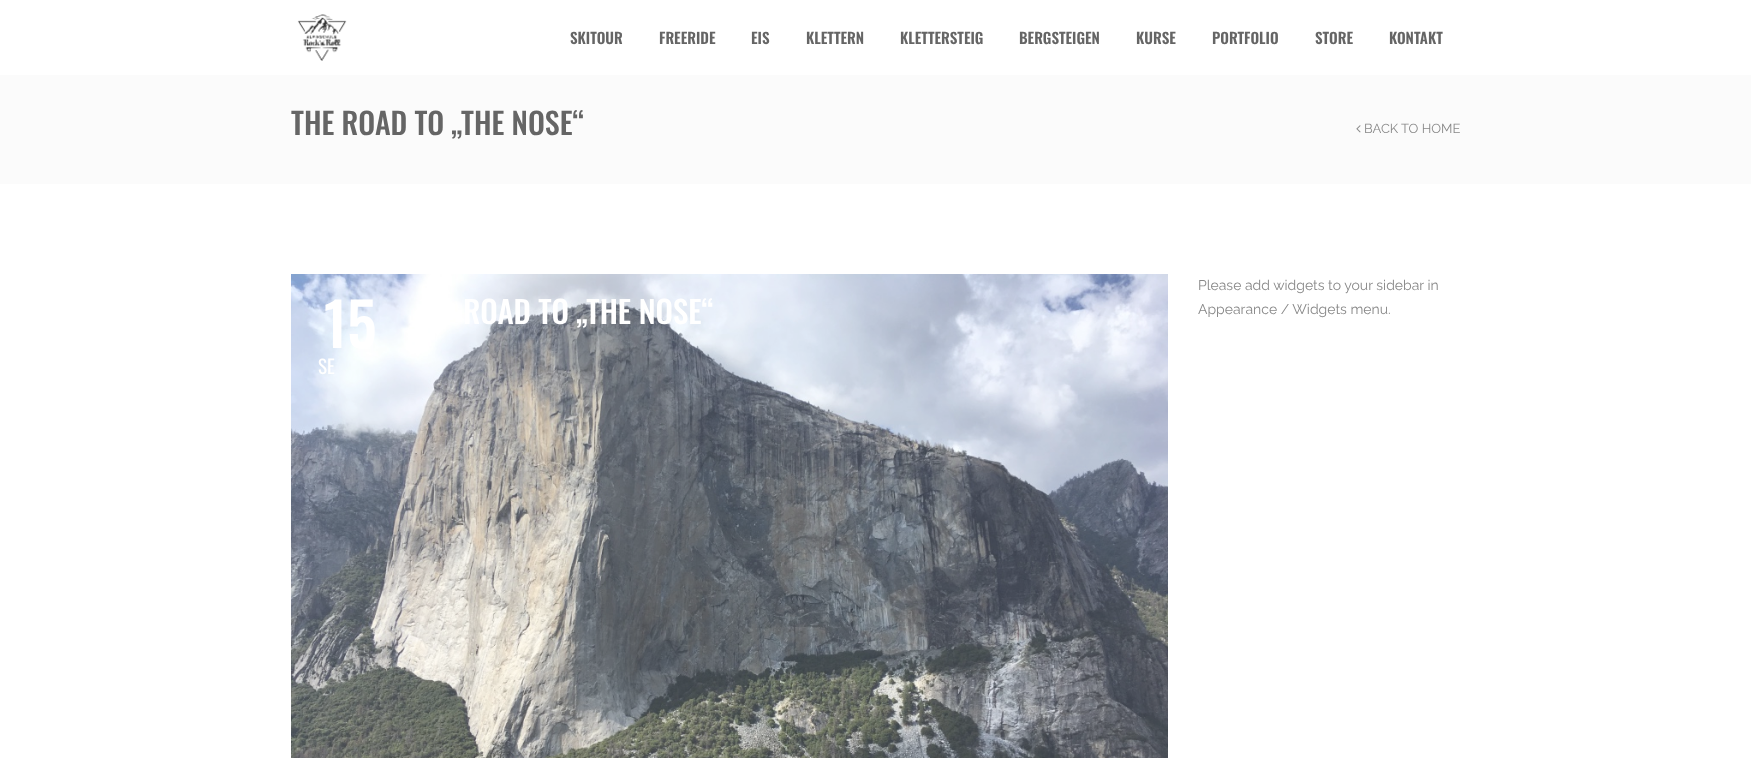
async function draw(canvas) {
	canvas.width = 1751;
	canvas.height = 758;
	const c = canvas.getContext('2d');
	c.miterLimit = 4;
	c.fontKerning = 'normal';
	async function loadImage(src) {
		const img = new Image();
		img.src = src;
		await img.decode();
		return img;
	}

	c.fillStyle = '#fff';
	c.fillRect(0, 0, 1751, 758);
	c.drawImage(await loadImage('img1.png'), 297, 14, 50, 47);
	c.font = '600 15px Oswald';
	c.fillStyle = '#656565';
	for (const [text, x, y] of [
		['SKITOUR', 570, 44],
		['FREERIDE', 659, 44],
		['EIS', 751, 44],
		['KLETTERN', 806, 44],
		['KLETTERSTEIG', 900, 44],
		['BERGSTEIGEN', 1019, 44],
		['KURSE', 1136, 44],
		['PORTFOLIO', 1212, 44],
		['STORE', 1315, 44],
		['KONTAKT', 1389, 44],
	]) {
		c.fillText(text, x, y);
	}
	c.fillStyle = '#fbfbfb';
	c.fillRect(0, 75, 1751, 109);
	c.font = '500 30px Oswald';
	c.fillStyle = '#656565';
	c.fillText('THE ROAD TO „THE NOSE“', 291, 135);
	c.drawImage(await loadImage('img2.png'), 1356, 125, 5, 8);
	c.font = '13px Raleway';
	c.fillStyle = '#888';
	c.fillText('BACK TO HOME', 1364, 133);
	c.drawImage(await loadImage('img3.png'), 291, 274, 877, 484);
	c.font = '500 60px Oswald';
	c.fillStyle = '#fff';
	c.fillText('15', 324, 348);
	c.font = '19px Oswald';
	c.fillText('SE', 318, 374);
	c.font = '500 31px Oswald';
	c.fillText('ROAD TO „THE NOSE“', 463, 324);
	c.font = '14px Raleway';
	c.fillStyle = '#888';
	c.fillText('Please add widgets to your sidebar in', 1198, 290);
	c.fillText('Appearance / Widgets menu.', 1198, 314);
}

draw(document.querySelector('canvas'));
